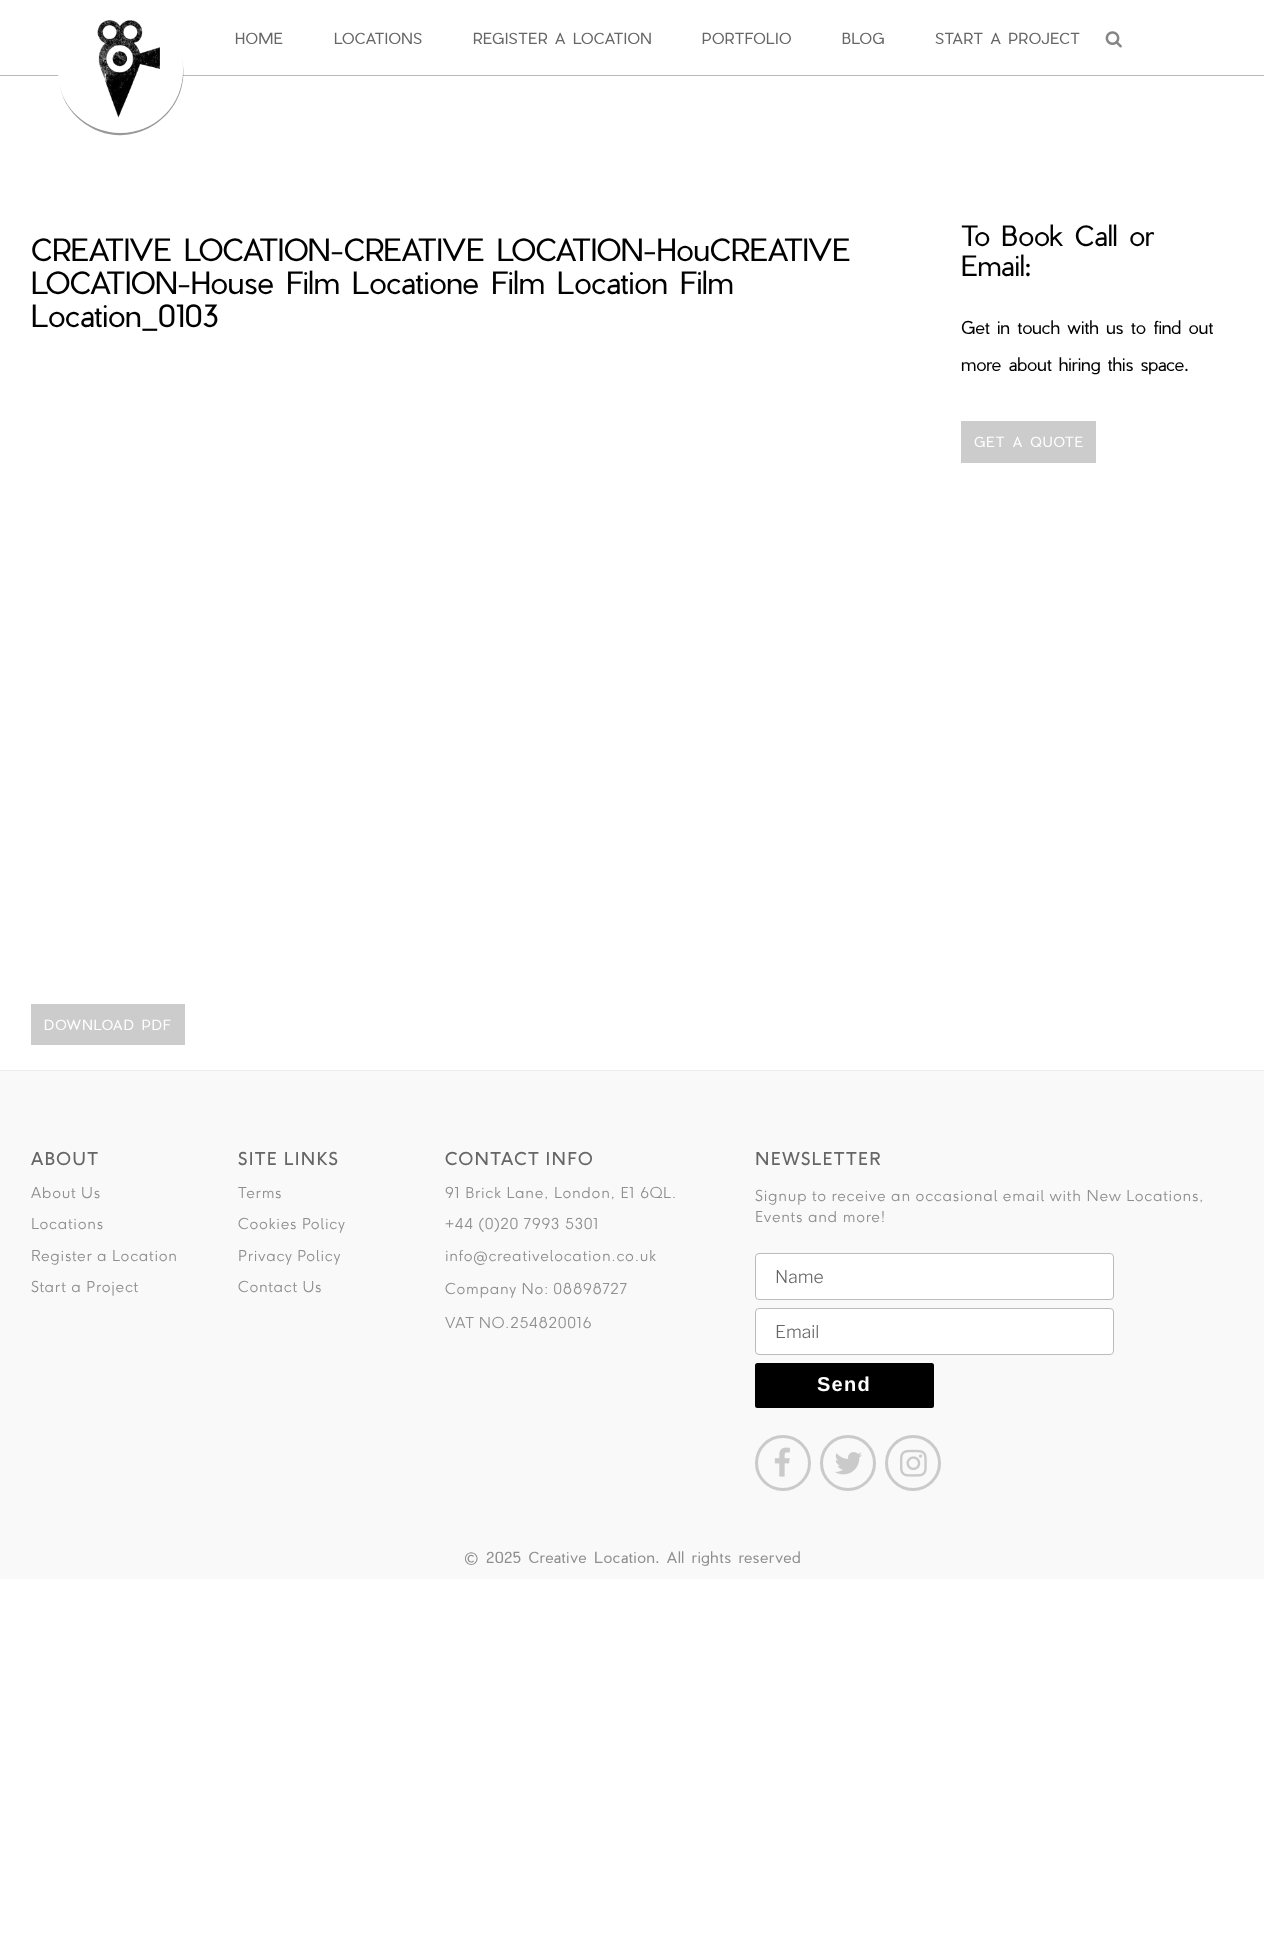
async function draw(canvas) {
	canvas.width = 1264;
	canvas.height = 1943;
	const c = canvas.getContext('2d');
	c.miterLimit = 4;
	c.fontKerning = 'normal';
	async function loadImage(src) {
		const img = new Image();
		img.src = src;
		await img.decode();
		return img;
	}

	c.fillStyle = '#fff';
	c.fillRect(0, 0, 1264, 1943);
	c.fillStyle = '#b6b8b9';
	c.fillRect(0, 75, 1264, 1);
	c.fillStyle = '#00000066';
	c.beginPath();
	c.moveTo(59, 84);
	c.bezierCurveTo(62, 98, 69, 111, 80, 120);
	c.bezierCurveTo(126, 159, 194, 117, 182, 59);
	c.bezierCurveTo(184, 71, 182, 83, 178, 94);
	c.bezierCurveTo(154, 150, 72, 142, 59, 84);
	c.closePath();
	c.fill();
	c.fillStyle = '#fff';
	c.beginPath();
	c.arc(120.5, 70.5, 62.5, 0, 2 * Math.PI);
	c.fill();
	c.drawImage(await loadImage('img1.png'), 97, 20, 63, 98);
	c.letterSpacing = '0.75px';
	c.font = '300 15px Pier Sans';
	c.fillStyle = '#666';
	for (const [text, x, y] of [
		['HOME', 235, 44],
		['LOCATIONS', 334, 44],
		['REGISTER A LOCATION', 473, 44],
		['PORTFOLIO', 702, 44],
		['BLOG', 842, 44],
		['START A PROJECT', 935, 44],
	]) {
		c.fillText(text, x, y);
	}
	c.drawImage(await loadImage('img2.png'), 1105, 31, 17, 17);
	c.letterSpacing = '0px';
	c.font = '300 30px Pier Sans';
	c.fillStyle = '#000';
	for (const [text, x, y] of [
		['CREATIVE LOCATION-CREATIVE LOCATION-HouCREATIVE', 31, 261],
		['LOCATION-House Film Locatione Film Location Film', 31, 294],
		['Location_0103', 31, 327],
	]) {
		c.fillText(text, x, y);
	}
	c.fillStyle = '#ccc';
	c.fillRect(31, 1004, 154, 41);
	c.letterSpacing = '1.25px';
	c.font = '300 13.75px Pier Sans';
	c.fillStyle = '#fff';
	c.fillText('DOWNLOAD PDF', 44, 1030);
	c.letterSpacing = '0px';
	c.font = '300 27.5px Pier Sans';
	c.fillStyle = '#000';
	c.fillText('To Book Call or', 961, 246);
	c.fillText('Email:', 961, 276);
	c.font = '300 17.5px Pier Sans';
	c.fillText('Get in touch with us to find out', 961, 334);
	c.fillText('more about hiring this space.', 961, 371);
	c.fillStyle = '#ccc';
	c.fillRect(961, 421, 135, 42);
	c.letterSpacing = '1.25px';
	c.font = '300 13.75px Pier Sans';
	c.fillStyle = '#fff';
	c.fillText('GET A QUOTE', 974, 447);
	c.fillStyle = '#f9f9f9';
	c.fillRect(0, 1071, 1264, 508);
	c.fillStyle = '#ededed';
	c.fillRect(0, 1070, 1264, 1);
	c.font = '17.5px "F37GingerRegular"';
	c.fillStyle = '#666';
	c.fillText('ABOUT', 31, 1165);
	c.letterSpacing = '0.75px';
	c.font = '300 15px "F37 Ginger"';
	c.fillStyle = '#8f8f8f';
	for (const [text, x, y] of [
		['About Us', 31, 1198],
		['Locations', 31, 1229],
		['Register a Location', 31, 1261],
		['Start a Project', 31, 1292],
	]) {
		c.fillText(text, x, y);
	}
	c.letterSpacing = '1.25px';
	c.font = '17.5px "F37GingerRegular"';
	c.fillStyle = '#666';
	c.fillText('SITE LINKS', 238, 1165);
	c.letterSpacing = '0.75px';
	c.font = '300 15px "F37 Ginger"';
	c.fillStyle = '#8f8f8f';
	for (const [text, x, y] of [
		['Terms', 238, 1198],
		['Cookies Policy', 238, 1229],
		['Privacy Policy', 238, 1261],
		['Contact Us', 238, 1292],
	]) {
		c.fillText(text, x, y);
	}
	c.letterSpacing = '1.25px';
	c.font = '17.5px "F37GingerRegular"';
	c.fillStyle = '#666';
	c.fillText('CONTACT INFO', 445, 1165);
	c.letterSpacing = '0.75px';
	c.font = '300 15px "F37 Ginger"';
	c.fillStyle = '#8f8f8f';
	for (const [text, x, y] of [
		['91 Brick Lane, London, E1 6QL.', 445, 1198],
		['+44 (0)20 7993 5301', 445, 1229],
		['info@creativelocation.co.uk', 445, 1261],
		['Company No: 08898727', 445, 1294],
		['VAT NO.254820016', 445, 1328],
	]) {
		c.fillText(text, x, y);
	}
	c.letterSpacing = '1.25px';
	c.font = '17.5px "F37GingerRegular"';
	c.fillStyle = '#666';
	c.fillText('NEWSLETTER', 755, 1165);
	c.letterSpacing = '0.75px';
	c.font = '300 15px "F37 Ginger"';
	c.fillStyle = '#8f8f8f';
	c.fillText('Signup to receive an occasional email with New Locations,', 755, 1201);
	c.fillText('Events and more!', 755, 1222);
	c.fillStyle = '#fff';
	c.beginPath();
	c.roundRect(755.5, 1253.5, 358, 46, 3.5);
	c.fill();
	c.strokeStyle = '#bbb';
	c.stroke();
	c.letterSpacing = '0px';
	c.font = '100 17.5px Libre Franklin';
	c.fillStyle = '#666';
	c.fillText('Name', 775, 1283);
	c.fillStyle = '#fff';
	c.beginPath();
	c.roundRect(755.5, 1308.5, 358, 46, 3.5);
	c.fill();
	c.stroke();
	c.fillStyle = '#666';
	c.fillText('Email', 775, 1338);
	c.fillStyle = '#000';
	c.beginPath();
	c.roundRect(755, 1363, 179, 45, 2.5);
	c.fill();
	c.letterSpacing = '1.25px';
	c.font = 'bold 20px Liberation Sans';
	c.fillStyle = '#fff';
	c.fillText('Send', 817, 1391);
	c.beginPath();
	c.arc(783, 1463, 26.5, 0, 2 * Math.PI);
	c.strokeStyle = '#cacaca';
	c.lineWidth = 3;
	c.stroke();
	c.drawImage(await loadImage('img3.png'), 774, 1447, 16, 30);
	c.beginPath();
	c.arc(848, 1463, 26.5, 0, 2 * Math.PI);
	c.stroke();
	c.drawImage(await loadImage('img4.png'), 835, 1452, 27, 23);
	c.beginPath();
	c.arc(913, 1463, 26.5, 0, 2 * Math.PI);
	c.stroke();
	c.drawImage(await loadImage('img5.png'), 900, 1449, 27, 28);
	c.letterSpacing = '0.75px';
	c.font = '300 15px Pier Sans';
	c.fillStyle = '#8f8f8f';
	c.fillText('© 2025 Creative Location. All rights reserved', 464, 1563);
}

draw(document.querySelector('canvas'));
